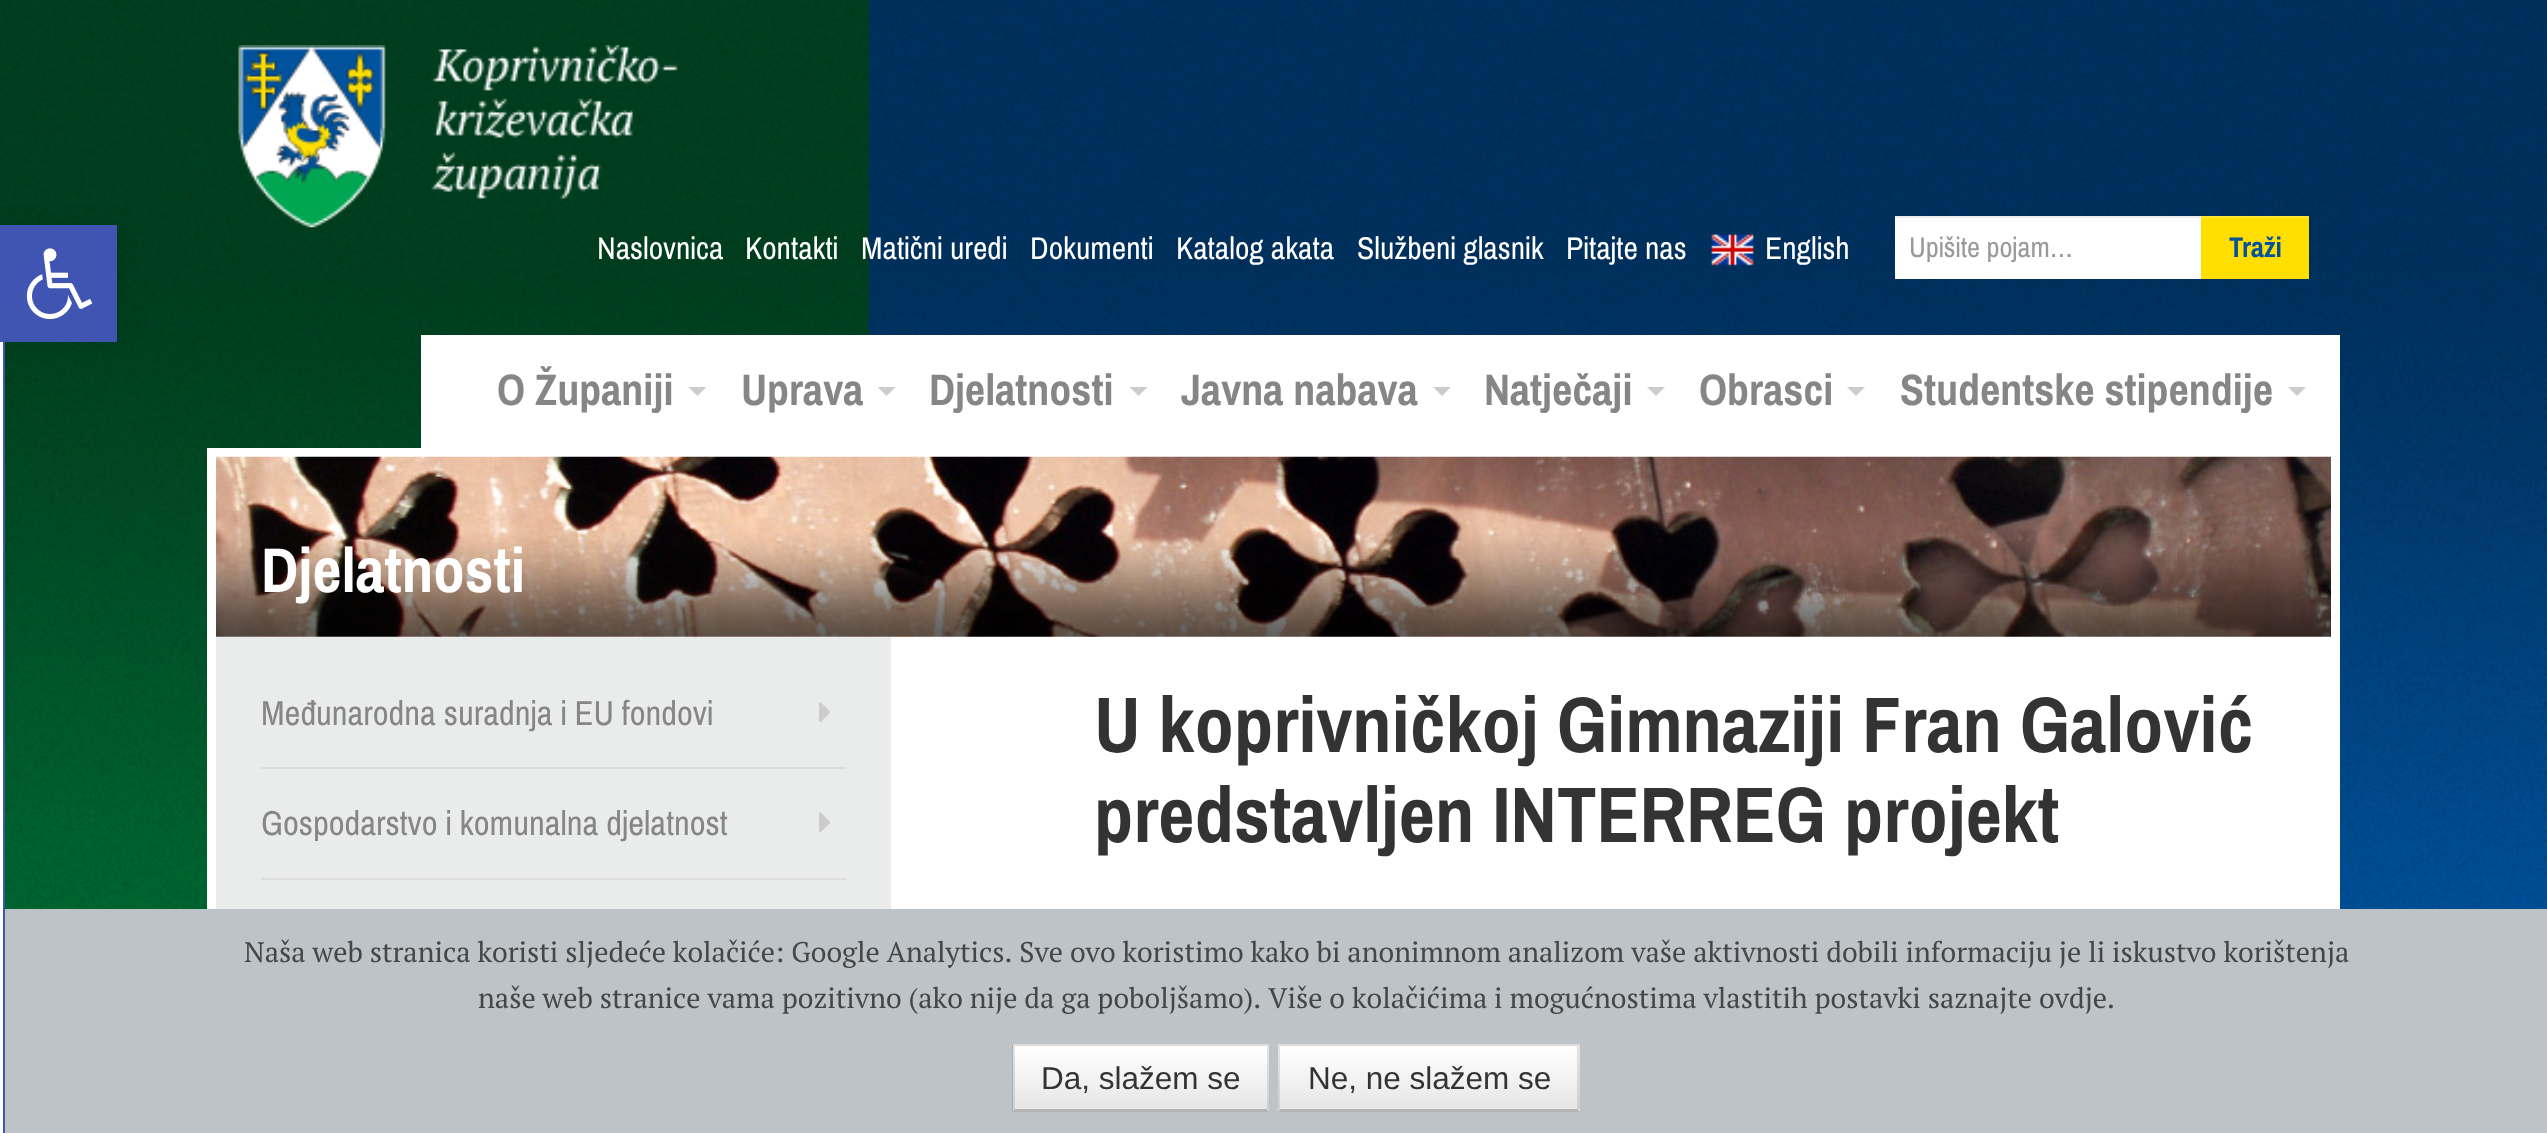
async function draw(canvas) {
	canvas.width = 2547;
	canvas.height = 1133;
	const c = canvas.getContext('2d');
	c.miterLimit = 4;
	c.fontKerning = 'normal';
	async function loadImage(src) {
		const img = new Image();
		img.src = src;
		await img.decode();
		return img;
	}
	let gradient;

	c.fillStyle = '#fff';
	c.fillRect(0, 0, 2547, 1133);
	c.drawImage(await loadImage('img1.png'), 0, 0, 2547, 909);
	c.fillRect(0, 342, 3, 567);
	c.strokeStyle = '#4054b2';
	c.lineWidth = 2;
	c.strokeRect(-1, 226, 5, 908);
	c.fillStyle = '#0000001a';
	c.filter = 'blur(11px)';
	c.beginPath();
	c.rect(0, 225, 117, 117);
	c.fill();
	c.filter = 'none';
	c.fillStyle = '#4054b2';
	c.fillRect(0, 225, 117, 117);
	c.drawImage(await loadImage('img2.png'), 26, 248, 67, 72);
	c.drawImage(await loadImage('img3.png'), 238, 45, 440, 183);
	c.font = '31.5px Archivo Narrow';
	c.fillStyle = '#fff';
	for (const [text, x, y] of [
		['Naslovnica', 597, 259],
		['Kontakti', 745, 259],
		['Matični uredi', 861, 259],
		['Dokumenti', 1030, 259],
		['Katalog akata', 1176, 259],
		['Službeni glasnik', 1357, 259],
		['Pitajte nas', 1566, 259],
	]) {
		c.fillText(text, x, y);
	}
	c.drawImage(await loadImage('img4.png'), 1711, 234, 43, 32);
	c.fillText('English', 1765, 259);
	c.fillRect(1895, 218, 306, 61);
	c.fillStyle = '#ececec';
	c.fillRect(1895, 216, 310, 2);
	c.font = '28.35px Archivo Narrow';
	c.fillStyle = '#999';
	c.fillText('Upišite pojam…', 1909, 257);
	c.fillStyle = '#ffde00';
	c.fillRect(2201, 218, 108, 61);
	c.fillStyle = '#ffe533';
	c.fillRect(2201, 216, 108, 2);
	c.font = 'bold 28.35px Archivo Narrow';
	c.fillStyle = '#00529c';
	c.fillText('Traži', 2229, 257);
	c.fillStyle = '#fff';
	c.fillRect(421, 335, 1919, 113);
	c.font = 'bold 44px Archivo Narrow';
	c.fillStyle = '#868686';
	c.fillText('O Županiji', 497, 405);
	c.fillStyle = '#ccc';
	c.beginPath();
	c.moveTo(688.5, 387);
	c.lineTo(706.5, 387);
	c.lineTo(697.5, 396);
	c.closePath();
	c.fill();
	c.fillStyle = '#868686';
	c.fillText('Uprava', 741, 405);
	c.fillStyle = '#ccc';
	c.beginPath();
	c.moveTo(877.5, 387);
	c.lineTo(895.5, 387);
	c.lineTo(886.5, 396);
	c.closePath();
	c.fill();
	c.fillStyle = '#868686';
	c.fillText('Djelatnosti', 929, 405);
	c.fillStyle = '#ccc';
	c.beginPath();
	c.moveTo(1129.5, 387);
	c.lineTo(1147.5, 387);
	c.lineTo(1138.5, 396);
	c.closePath();
	c.fill();
	c.fillStyle = '#868686';
	c.fillText('Javna nabava', 1181, 405);
	c.fillStyle = '#ccc';
	c.beginPath();
	c.moveTo(1433, 387);
	c.lineTo(1451, 387);
	c.lineTo(1442, 396);
	c.closePath();
	c.fill();
	c.fillStyle = '#868686';
	c.fillText('Natječaji', 1484, 405);
	c.fillStyle = '#ccc';
	c.beginPath();
	c.moveTo(1647, 387);
	c.lineTo(1665, 387);
	c.lineTo(1656, 396);
	c.closePath();
	c.fill();
	c.fillStyle = '#868686';
	c.fillText('Obrasci', 1699, 405);
	c.fillStyle = '#ccc';
	c.beginPath();
	c.moveTo(1847, 387);
	c.lineTo(1865, 387);
	c.lineTo(1856, 396);
	c.closePath();
	c.fill();
	c.fillStyle = '#868686';
	c.fillText('Studentske stipendije', 1900, 405);
	c.fillStyle = '#ccc';
	c.beginPath();
	c.moveTo(2288, 387);
	c.lineTo(2306, 387);
	c.lineTo(2297, 396);
	c.closePath();
	c.fill();
	c.fillStyle = '#fff';
	c.fillRect(207, 448, 2133, 461);
	c.drawImage(await loadImage('img5.png'), 216, 456, 2115, 181);
	c.font = 'bold 63px Archivo Narrow';
	c.fillText('Djelatnosti', 261, 592);
	c.fillStyle = '#e9ecea';
	c.fillRect(216, 637, 675, 272);
	c.fillStyle = '#ddd';
	c.fillRect(261, 767, 585, 2);
	c.font = '34.6px Archivo Narrow';
	c.fillStyle = '#868686';
	c.fillText('Međunarodna suradnja i EU fondovi', 261, 725);
	c.drawImage(await loadImage('img6.png'), 819, 702, 11, 20);
	c.fillStyle = '#ddd';
	c.fillRect(261, 878, 585, 2);
	c.fillStyle = '#868686';
	c.fillText('Gospodarstvo i komunalna djelatnost', 261, 835);
	c.drawImage(await loadImage('img7.png'), 819, 812, 11, 21);
	c.font = 'bold 78.75px Archivo Narrow';
	c.fillStyle = '#333';
	c.fillText('U koprivničkoj Gimnaziji Fran Galović', 1094, 752);
	c.fillText('predstavljen INTERREG projekt', 1094, 842);
	c.fillStyle = '#bdc3c7';
	c.fillRect(5, 909, 2542, 224);
	c.font = '28.35px PT Serif';
	c.fillStyle = '#464646';
	c.fillText('Naša web stranica koristi sljedeće kolačiće: Google Analytics. Sve ovo koristimo kako bi anonimnom analizom vaše aktivnosti dobili informaciju je li iskustvo korištenja', 244, 962);
	c.fillText('naše web stranice vama pozitivno (ako nije da ga poboljšamo). Više o kolačićima i mogućnostima vlastitih postavki saznajte ovdje.', 478, 1008);
	c.fillStyle = '#f5f5f5';
	c.fillRect(1013, 1044, 256, 68);
	gradient = c.createLinearGradient(1141, 1046, 1141, 1109);
	gradient.addColorStop(0, '#fff');
	gradient.addColorStop(1, '#e6e6e6');
	c.fillStyle = gradient;
	c.fillRect(1013, 1046, 256, 63);
	c.fillStyle = '#ddd';
	c.beginPath();
	c.moveTo(1012, 1044);
	c.lineTo(1269, 1044);
	c.lineTo(1267, 1046);
	c.lineTo(1015, 1046);
	c.closePath();
	c.fill();
	c.fillStyle = '#0000001a';
	c.beginPath();
	c.moveTo(1269, 1044);
	c.lineTo(1269, 1112);
	c.lineTo(1267, 1109);
	c.lineTo(1267, 1046);
	c.closePath();
	c.fill();
	c.fillStyle = '#b3b3b3';
	c.beginPath();
	c.moveTo(1269, 1112);
	c.lineTo(1012, 1112);
	c.lineTo(1015, 1109);
	c.lineTo(1267, 1109);
	c.closePath();
	c.fill();
	c.fillStyle = '#0000001a';
	c.beginPath();
	c.moveTo(1012, 1112);
	c.lineTo(1012, 1044);
	c.lineTo(1015, 1046);
	c.lineTo(1015, 1109);
	c.closePath();
	c.fill();
	c.font = '31.5px Liberation Sans';
	c.fillStyle = '#333';
	c.fillText('Da, slažem se', 1041, 1089);
	c.fillStyle = '#f5f5f5';
	c.fillRect(1278, 1044, 302, 68);
	gradient = c.createLinearGradient(1429, 1046, 1429, 1109);
	gradient.addColorStop(0, '#fff');
	gradient.addColorStop(1, '#e6e6e6');
	c.fillStyle = gradient;
	c.fillRect(1278, 1046, 302, 63);
	c.fillStyle = '#ddd';
	c.beginPath();
	c.moveTo(1278, 1044);
	c.lineTo(1580, 1044);
	c.lineTo(1577, 1046);
	c.lineTo(1280, 1046);
	c.closePath();
	c.fill();
	c.fillStyle = '#0000001a';
	c.beginPath();
	c.moveTo(1580, 1044);
	c.lineTo(1580, 1112);
	c.lineTo(1577, 1109);
	c.lineTo(1577, 1046);
	c.closePath();
	c.fill();
	c.fillStyle = '#b3b3b3';
	c.beginPath();
	c.moveTo(1580, 1112);
	c.lineTo(1278, 1112);
	c.lineTo(1280, 1109);
	c.lineTo(1577, 1109);
	c.closePath();
	c.fill();
	c.fillStyle = '#0000001a';
	c.beginPath();
	c.moveTo(1278, 1112);
	c.lineTo(1278, 1044);
	c.lineTo(1280, 1046);
	c.lineTo(1280, 1109);
	c.closePath();
	c.fill();
	c.fillStyle = '#333';
	c.fillText('Ne, ne slažem se', 1308, 1089);
}

draw(document.querySelector('canvas'));
